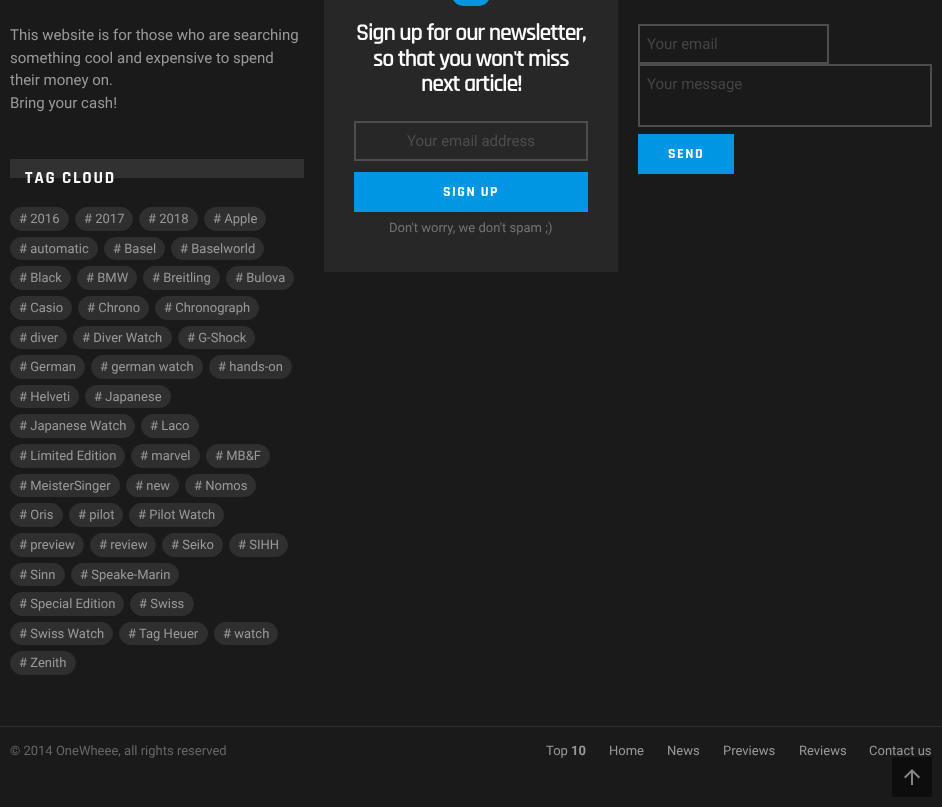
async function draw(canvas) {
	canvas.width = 942;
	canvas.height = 807;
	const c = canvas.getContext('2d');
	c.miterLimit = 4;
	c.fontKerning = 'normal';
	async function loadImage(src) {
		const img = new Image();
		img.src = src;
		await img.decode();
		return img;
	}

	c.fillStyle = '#1a1a1a';
	c.fillRect(0, 0, 942, 807);
	c.font = '15px Roboto';
	c.fillStyle = '#999';
	for (const [text, x, y] of [
		['This website is for those who are searching', 10, 40],
		['something cool and expensive to spend', 10, 63],
		['their money on.', 10, 85],
		['Bring your cash!', 10, 108],
	]) {
		c.fillText(text, x, y);
	}
	c.fillStyle = '#313131';
	c.fillRect(10, 159, 294, 19);
	c.letterSpacing = '1.75px';
	c.font = 'bold 17px Rajdhani';
	c.fillStyle = '#fff';
	c.fillText('TAG CLOUD', 25, 183);
	c.letterSpacing = '0px';
	c.font = '13px Roboto';
	c.fillStyle = '#999';
	c.fillText('# 2016', 19, 223);
	c.fillStyle = '#9999992b';
	c.beginPath();
	c.roundRect(10.5, 207.5, 58, 23, 11.5);
	c.fill();
	c.strokeStyle = '#2f2f2f';
	c.stroke();
	c.fillStyle = '#999';
	c.fillText('# 2017', 84, 223);
	c.fillStyle = '#9999992b';
	c.beginPath();
	c.roundRect(75.5, 207.5, 57, 23, 11.5);
	c.fill();
	c.stroke();
	c.fillStyle = '#999';
	c.fillText('# 2018', 148, 223);
	c.fillStyle = '#9999992b';
	c.beginPath();
	c.roundRect(139.5, 207.5, 58, 23, 11.5);
	c.fill();
	c.stroke();
	c.fillStyle = '#999';
	c.fillText('# Apple', 213, 223);
	c.fillStyle = '#9999992b';
	c.beginPath();
	c.roundRect(204.5, 207.5, 61, 23, 11.5);
	c.fill();
	c.stroke();
	c.fillStyle = '#999';
	c.fillText('# automatic', 19, 253);
	c.fillStyle = '#9999992b';
	c.beginPath();
	c.roundRect(10.5, 237.5, 87, 22, 11);
	c.fill();
	c.stroke();
	c.fillStyle = '#999';
	c.fillText('# Basel', 113, 253);
	c.fillStyle = '#9999992b';
	c.beginPath();
	c.roundRect(104.5, 237.5, 60, 22, 11);
	c.fill();
	c.stroke();
	c.fillStyle = '#999';
	c.fillText('# Baselworld', 180, 253);
	c.fillStyle = '#9999992b';
	c.beginPath();
	c.roundRect(171.5, 237.5, 92, 22, 11);
	c.fill();
	c.stroke();
	c.fillStyle = '#999';
	c.fillText('# Black', 19, 282);
	c.fillStyle = '#9999992b';
	c.beginPath();
	c.roundRect(10.5, 266.5, 60, 23, 11.5);
	c.fill();
	c.stroke();
	c.fillStyle = '#999';
	c.fillText('# BMW', 86, 282);
	c.fillStyle = '#9999992b';
	c.beginPath();
	c.roundRect(77.5, 266.5, 59, 23, 11.5);
	c.fill();
	c.stroke();
	c.fillStyle = '#999';
	c.fillText('# Breitling', 152, 282);
	c.fillStyle = '#9999992b';
	c.beginPath();
	c.roundRect(143.5, 266.5, 76, 23, 11.5);
	c.fill();
	c.stroke();
	c.fillStyle = '#999';
	c.fillText('# Bulova', 235, 282);
	c.fillStyle = '#9999992b';
	c.beginPath();
	c.roundRect(226.5, 266.5, 67, 23, 11.5);
	c.fill();
	c.stroke();
	c.fillStyle = '#999';
	c.fillText('# Casio', 19, 312);
	c.fillStyle = '#9999992b';
	c.beginPath();
	c.roundRect(10.5, 296.5, 61, 23, 11.5);
	c.fill();
	c.stroke();
	c.fillStyle = '#999';
	c.fillText('# Chrono', 87, 312);
	c.fillStyle = '#9999992b';
	c.beginPath();
	c.roundRect(78.5, 296.5, 70, 23, 11.5);
	c.fill();
	c.stroke();
	c.fillStyle = '#999';
	c.fillText('# Chronograph', 164, 312);
	c.fillStyle = '#9999992b';
	c.beginPath();
	c.roundRect(155.5, 296.5, 103, 23, 11.5);
	c.fill();
	c.stroke();
	c.fillStyle = '#999';
	c.fillText('# diver', 19, 342);
	c.fillStyle = '#9999992b';
	c.beginPath();
	c.roundRect(10.5, 326.5, 56, 22, 11);
	c.fill();
	c.stroke();
	c.fillStyle = '#999';
	c.fillText('# Diver Watch', 82, 342);
	c.fillStyle = '#9999992b';
	c.beginPath();
	c.roundRect(73.5, 326.5, 98, 22, 11);
	c.fill();
	c.stroke();
	c.fillStyle = '#999';
	c.fillText('# G-Shock', 187, 342);
	c.fillStyle = '#9999992b';
	c.beginPath();
	c.roundRect(178.5, 326.5, 76, 22, 11);
	c.fill();
	c.stroke();
	c.fillStyle = '#999';
	c.fillText('# German', 19, 371);
	c.fillStyle = '#9999992b';
	c.beginPath();
	c.roundRect(10.5, 355.5, 74, 23, 11.5);
	c.fill();
	c.stroke();
	c.fillStyle = '#999';
	c.fillText('# german watch', 100, 371);
	c.fillStyle = '#9999992b';
	c.beginPath();
	c.roundRect(91.5, 355.5, 111, 23, 11.5);
	c.fill();
	c.stroke();
	c.fillStyle = '#999';
	c.fillText('# hands-on', 218, 371);
	c.fillStyle = '#9999992b';
	c.beginPath();
	c.roundRect(209.5, 355.5, 82, 23, 11.5);
	c.fill();
	c.stroke();
	c.fillStyle = '#999';
	c.fillText('# Helveti', 19, 401);
	c.fillStyle = '#9999992b';
	c.beginPath();
	c.roundRect(10.5, 385.5, 68, 22, 11);
	c.fill();
	c.stroke();
	c.fillStyle = '#999';
	c.fillText('# Japanese', 94, 401);
	c.fillStyle = '#9999992b';
	c.beginPath();
	c.roundRect(85.5, 385.5, 85, 22, 11);
	c.fill();
	c.stroke();
	c.fillStyle = '#999';
	c.fillText('# Japanese Watch', 19, 430);
	c.fillStyle = '#9999992b';
	c.beginPath();
	c.roundRect(10.5, 414.5, 124, 23, 11.5);
	c.fill();
	c.stroke();
	c.fillStyle = '#999';
	c.fillText('# Laco', 150, 430);
	c.fillStyle = '#9999992b';
	c.beginPath();
	c.roundRect(141.5, 414.5, 57, 23, 11.5);
	c.fill();
	c.stroke();
	c.fillStyle = '#999';
	c.fillText('# Limited Edition', 19, 460);
	c.fillStyle = '#9999992b';
	c.beginPath();
	c.roundRect(10.5, 444.5, 114, 23, 11.5);
	c.fill();
	c.stroke();
	c.fillStyle = '#999';
	c.fillText('# marvel', 140, 460);
	c.fillStyle = '#9999992b';
	c.beginPath();
	c.roundRect(131.5, 444.5, 68, 23, 11.5);
	c.fill();
	c.stroke();
	c.fillStyle = '#999';
	c.fillText('# MB&F', 215, 460);
	c.fillStyle = '#9999992b';
	c.beginPath();
	c.roundRect(206.5, 444.5, 63, 23, 11.5);
	c.fill();
	c.stroke();
	c.fillStyle = '#999';
	c.fillText('# MeisterSinger', 19, 490);
	c.fillStyle = '#9999992b';
	c.beginPath();
	c.roundRect(10.5, 474.5, 109, 22, 11);
	c.fill();
	c.stroke();
	c.fillStyle = '#999';
	c.fillText('# new', 135, 490);
	c.fillStyle = '#9999992b';
	c.beginPath();
	c.roundRect(126.5, 474.5, 52, 22, 11);
	c.fill();
	c.stroke();
	c.fillStyle = '#999';
	c.fillText('# Nomos', 194, 490);
	c.fillStyle = '#9999992b';
	c.beginPath();
	c.roundRect(185.5, 474.5, 70, 22, 11);
	c.fill();
	c.stroke();
	c.fillStyle = '#999';
	c.fillText('# Oris', 19, 519);
	c.fillStyle = '#9999992b';
	c.beginPath();
	c.roundRect(10.5, 503.5, 52, 23, 11.5);
	c.fill();
	c.stroke();
	c.fillStyle = '#999';
	c.fillText('# pilot', 78, 519);
	c.fillStyle = '#9999992b';
	c.beginPath();
	c.roundRect(69.5, 503.5, 53, 23, 11.5);
	c.fill();
	c.stroke();
	c.fillStyle = '#999';
	c.fillText('# Pilot Watch', 138, 519);
	c.fillStyle = '#9999992b';
	c.beginPath();
	c.roundRect(129.5, 503.5, 94, 23, 11.5);
	c.fill();
	c.stroke();
	c.fillStyle = '#999';
	c.fillText('# preview', 19, 549);
	c.fillStyle = '#9999992b';
	c.beginPath();
	c.roundRect(10.5, 533.5, 73, 23, 11.5);
	c.fill();
	c.stroke();
	c.fillStyle = '#999';
	c.fillText('# review', 99, 549);
	c.fillStyle = '#9999992b';
	c.beginPath();
	c.roundRect(90.5, 533.5, 65, 23, 11.5);
	c.fill();
	c.stroke();
	c.fillStyle = '#999';
	c.fillText('# Seiko', 171, 549);
	c.fillStyle = '#9999992b';
	c.beginPath();
	c.roundRect(162.5, 533.5, 60, 23, 11.5);
	c.fill();
	c.stroke();
	c.fillStyle = '#999';
	c.fillText('# SIHH', 238, 549);
	c.fillStyle = '#9999992b';
	c.beginPath();
	c.roundRect(229.5, 533.5, 58, 23, 11.5);
	c.fill();
	c.stroke();
	c.fillStyle = '#999';
	c.fillText('# Sinn', 19, 579);
	c.fillStyle = '#9999992b';
	c.beginPath();
	c.roundRect(10.5, 563.5, 54, 22, 11);
	c.fill();
	c.stroke();
	c.fillStyle = '#999';
	c.fillText('# Speake-Marin', 80, 579);
	c.fillStyle = '#9999992b';
	c.beginPath();
	c.roundRect(71.5, 563.5, 107, 22, 11);
	c.fill();
	c.stroke();
	c.fillStyle = '#999';
	c.fillText('# Special Edition', 19, 608);
	c.fillStyle = '#9999992b';
	c.beginPath();
	c.roundRect(10.5, 592.5, 113, 23, 11.5);
	c.fill();
	c.stroke();
	c.fillStyle = '#999';
	c.fillText('# Swiss', 139, 608);
	c.fillStyle = '#9999992b';
	c.beginPath();
	c.roundRect(130.5, 592.5, 63, 23, 11.5);
	c.fill();
	c.stroke();
	c.fillStyle = '#999';
	c.fillText('# Swiss Watch', 19, 638);
	c.fillStyle = '#9999992b';
	c.beginPath();
	c.roundRect(10.5, 622.5, 102, 22, 11);
	c.fill();
	c.stroke();
	c.fillStyle = '#999';
	c.fillText('# Tag Heuer', 128, 638);
	c.fillStyle = '#9999992b';
	c.beginPath();
	c.roundRect(119.5, 622.5, 88, 22, 11);
	c.fill();
	c.stroke();
	c.fillStyle = '#999';
	c.fillText('# watch', 223, 638);
	c.fillStyle = '#9999992b';
	c.beginPath();
	c.roundRect(214.5, 622.5, 63, 22, 11);
	c.fill();
	c.stroke();
	c.fillStyle = '#999';
	c.fillText('# Zenith', 19, 667);
	c.fillStyle = '#9999992b';
	c.beginPath();
	c.roundRect(10.5, 651.5, 65, 23, 11.5);
	c.fill();
	c.stroke();
	c.fillStyle = '#272727';
	c.fillRect(324, 0, 294, 272);
	c.fillStyle = '#0096e3';
	c.beginPath();
	c.roundRect(451, -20, 40, 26, 20);
	c.fill();
	c.letterSpacing = '-1.2px';
	c.font = '600 24px Rajdhani';
	c.fillStyle = '#fff';
	for (const [text, x, y] of [
		['Sign up for our newsletter,', 356, 40],
		['so that you won\'t miss', 373, 66],
		['next article!', 421, 91],
	]) {
		c.fillText(text, x, y);
	}
	c.strokeStyle = '#4d4d4d';
	c.lineWidth = 2;
	c.strokeRect(355, 122, 232, 38);
	c.letterSpacing = '0px';
	c.font = '15px Roboto';
	c.fillStyle = '#4d4d4d';
	c.fillText('Your email address', 407, 146);
	c.fillStyle = '#0096e3';
	c.fillRect(354, 172, 234, 40);
	c.letterSpacing = '1.5px';
	c.font = 'bold 14px Rajdhani';
	c.fillStyle = '#fff';
	c.fillText('SIGN UP', 443, 196);
	c.letterSpacing = '0px';
	c.font = '13px Roboto';
	c.fillStyle = '#737373';
	c.fillText('Don\'t worry, we don\'t spam ;)', 389, 232);
	c.strokeRect(639, 25, 189, 38);
	c.font = '15px Roboto';
	c.fillStyle = '#444';
	c.fillText('Your email', 647, 49);
	c.strokeRect(639, 65, 292, 61);
	c.fillText('Your message', 647, 89);
	c.fillStyle = '#0096e3';
	c.fillRect(638, 134, 96, 40);
	c.letterSpacing = '1.5px';
	c.font = 'bold 14px Rajdhani';
	c.fillStyle = '#fff';
	c.fillText('SEND', 668, 158);
	c.fillStyle = '#2f2f2f';
	c.fillRect(0, 726, 942, 1);
	c.letterSpacing = '0px';
	c.font = '13px Roboto';
	c.fillStyle = '#666';
	c.fillText('© 2014 OneWheee, all rights reserved', 10, 755);
	c.fillStyle = '#999';
	c.fillText('Top', 546, 755);
	c.font = 'bold 13px Roboto';
	c.fillText('10', 571, 755);
	c.font = '13px Roboto';
	for (const [text, x, y] of [
		['Home', 609, 755],
		['News', 667, 755],
		['Previews', 723, 755],
		['Reviews', 799, 755],
		['Contact us', 869, 755],
	]) {
		c.fillText(text, x, y);
	}
	c.fillStyle = '#0d0d0d';
	c.fillRect(892, 757, 40, 40);
	c.drawImage(await loadImage('img1.png'), 904, 769, 16, 16);
}

draw(document.querySelector('canvas'));
